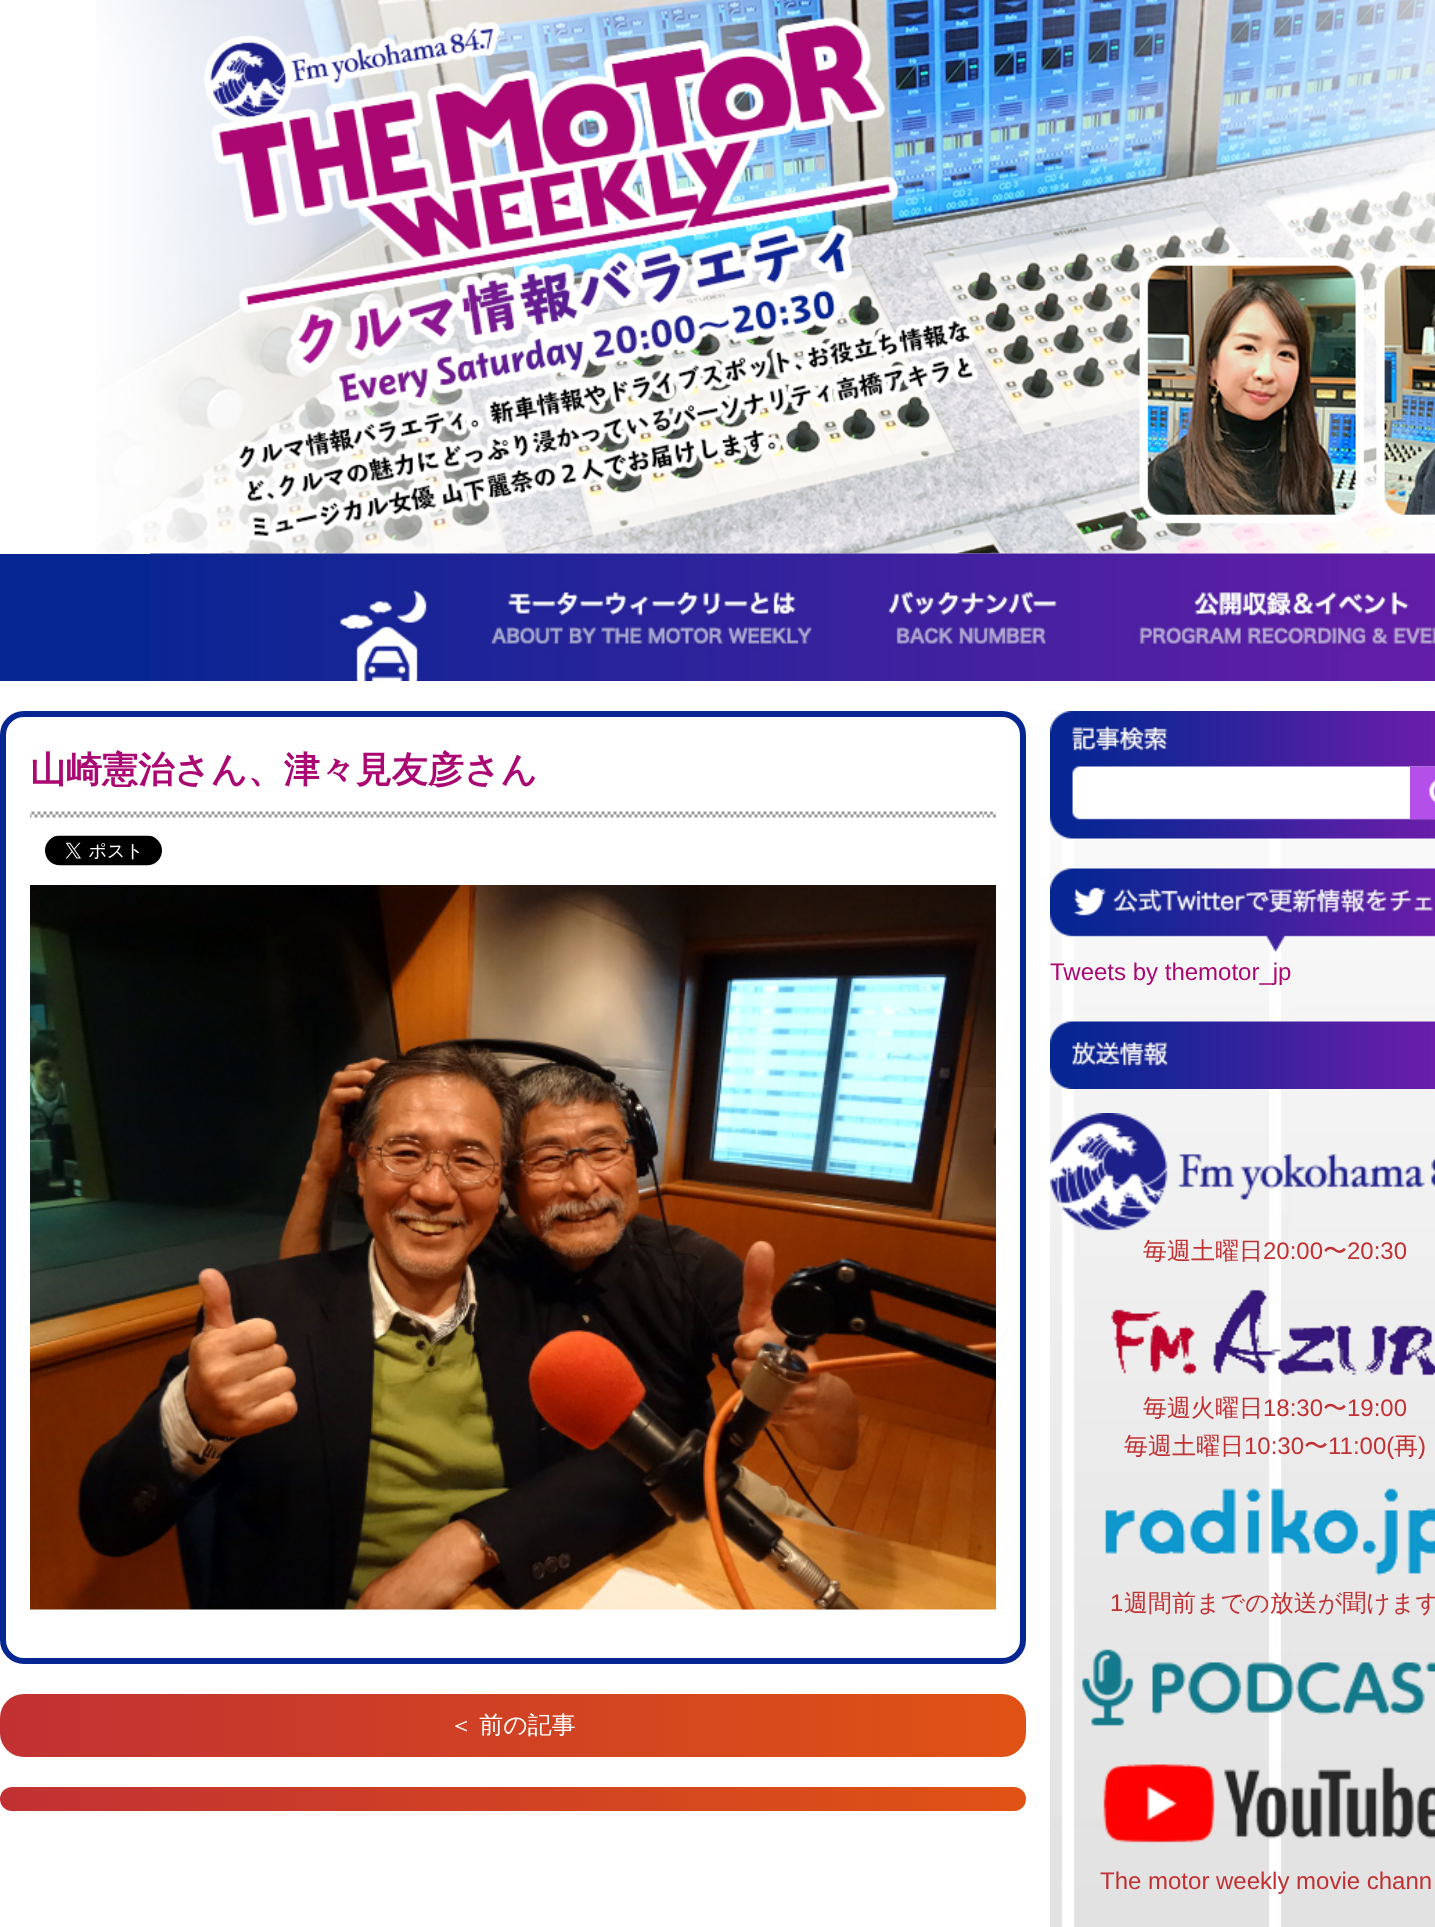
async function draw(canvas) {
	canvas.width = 1435;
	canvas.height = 1927;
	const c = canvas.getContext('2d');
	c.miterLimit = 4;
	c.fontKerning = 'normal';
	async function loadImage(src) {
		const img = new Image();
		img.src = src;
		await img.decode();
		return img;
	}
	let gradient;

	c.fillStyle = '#fff';
	c.fillRect(0, 0, 1435, 1927);
	c.drawImage(await loadImage('img1.png'), 96, 0, 1339, 554);
	c.fillStyle = '#052692';
	c.fillRect(0, 554, 150, 127);
	c.drawImage(await loadImage('img2.png'), 150, 553, 1285, 128);
	c.drawImage(await loadImage('img3.png'), 1050, 711, 385, 1216);
	c.beginPath();
	c.roundRect(3, 714, 1020, 947, 21);
	c.strokeStyle = '#062692';
	c.lineWidth = 6;
	c.stroke();
	c.font = 'bold 36px WenQuanYi Zen Hei';
	c.fillStyle = '#ab0773';
	c.fillText('山崎憲治さん、津々見友彦さん', 30, 782);
	c.drawImage(await loadImage('img4.png'), 30, 811, 966, 7);
	c.drawImage(await loadImage('img5.png'), 45, 835, 117, 31);
	c.drawImage(await loadImage('img6.png'), 30, 885, 966, 725);
	gradient = c.createLinearGradient(0, 1725, 1026, 1725);
	gradient.addColorStop(0, '#c13133');
	gradient.addColorStop(1, '#e05214');
	c.fillStyle = gradient;
	c.beginPath();
	c.roundRect(0, 1694, 1026, 63, 24);
	c.fill();
	c.wordSpacing = '-1px';
	c.font = '500 24px WenQuanYi Zen Hei';
	c.fillStyle = '#fff';
	c.fillText('＜ 前の記事', 449, 1733);
	gradient = c.createLinearGradient(0, 1799, 1026, 1799);
	gradient.addColorStop(0, '#c13133');
	gradient.addColorStop(1, '#e05214');
	c.fillStyle = gradient;
	c.beginPath();
	c.roundRect(0, 1787, 1026, 24, 12);
	c.fill();
	c.drawImage(await loadImage('img7.png'), 1050, 711, 385, 128);
	c.drawImage(await loadImage('img8.png'), 1410, 766, 25, 53);
	c.drawImage(await loadImage('img9.png'), 1050, 868, 385, 85);
	c.wordSpacing = '0px';
	c.font = '24px Liberation Sans';
	c.fillStyle = '#ab0773';
	c.fillText('Tweets by themotor_jp', 1050, 980);
	c.drawImage(await loadImage('img10.png'), 1050, 1021, 385, 68);
	c.drawImage(await loadImage('img11.png'), 1050, 1113, 385, 118);
	c.font = '500 24px WenQuanYi Zen Hei';
	c.fillStyle = '#c13133';
	c.fillText('毎週土曜日', 1143, 1259);
	c.font = '24px Liberation Sans';
	c.fillText('20:00', 1263, 1259);
	c.font = '500 24px WenQuanYi Zen Hei';
	c.fillText('〜', 1323, 1259);
	c.font = '24px Liberation Sans';
	c.fillText('20:30', 1347, 1259);
	c.drawImage(await loadImage('img12.png'), 1110, 1289, 325, 87);
	c.font = '500 24px WenQuanYi Zen Hei';
	c.fillText('毎週火曜日', 1143, 1416);
	c.font = '24px Liberation Sans';
	c.fillText('18:30', 1263, 1416);
	c.font = '500 24px WenQuanYi Zen Hei';
	c.fillText('〜', 1323, 1416);
	c.font = '24px Liberation Sans';
	c.fillText('19:00', 1347, 1416);
	c.font = '500 24px WenQuanYi Zen Hei';
	c.fillText('毎週土曜日', 1124, 1454);
	c.font = '24px Liberation Sans';
	c.fillText('10:30', 1244, 1454);
	c.font = '500 24px WenQuanYi Zen Hei';
	c.fillText('〜', 1304, 1454);
	c.font = '24px Liberation Sans';
	c.fillText('11:00(', 1328, 1454);
	c.font = '500 24px WenQuanYi Zen Hei';
	c.fillText('再', 1394, 1454);
	c.font = '24px Liberation Sans';
	c.fillText(')', 1418, 1454);
	c.drawImage(await loadImage('img13.png'), 1105, 1488, 330, 88);
	c.fillText('1', 1110, 1611);
	c.font = '500 24px WenQuanYi Zen Hei';
	c.fillText('週間前までの放送が聞けます', 1124, 1611);
	c.drawImage(await loadImage('img14.png'), 1082, 1649, 353, 77);
	c.drawImage(await loadImage('img15.png'), 1103, 1764, 332, 79);
	c.font = '24px Liberation Sans';
	c.fillText('The motor weekly movie chann', 1100, 1889);
}

draw(document.querySelector('canvas'));
